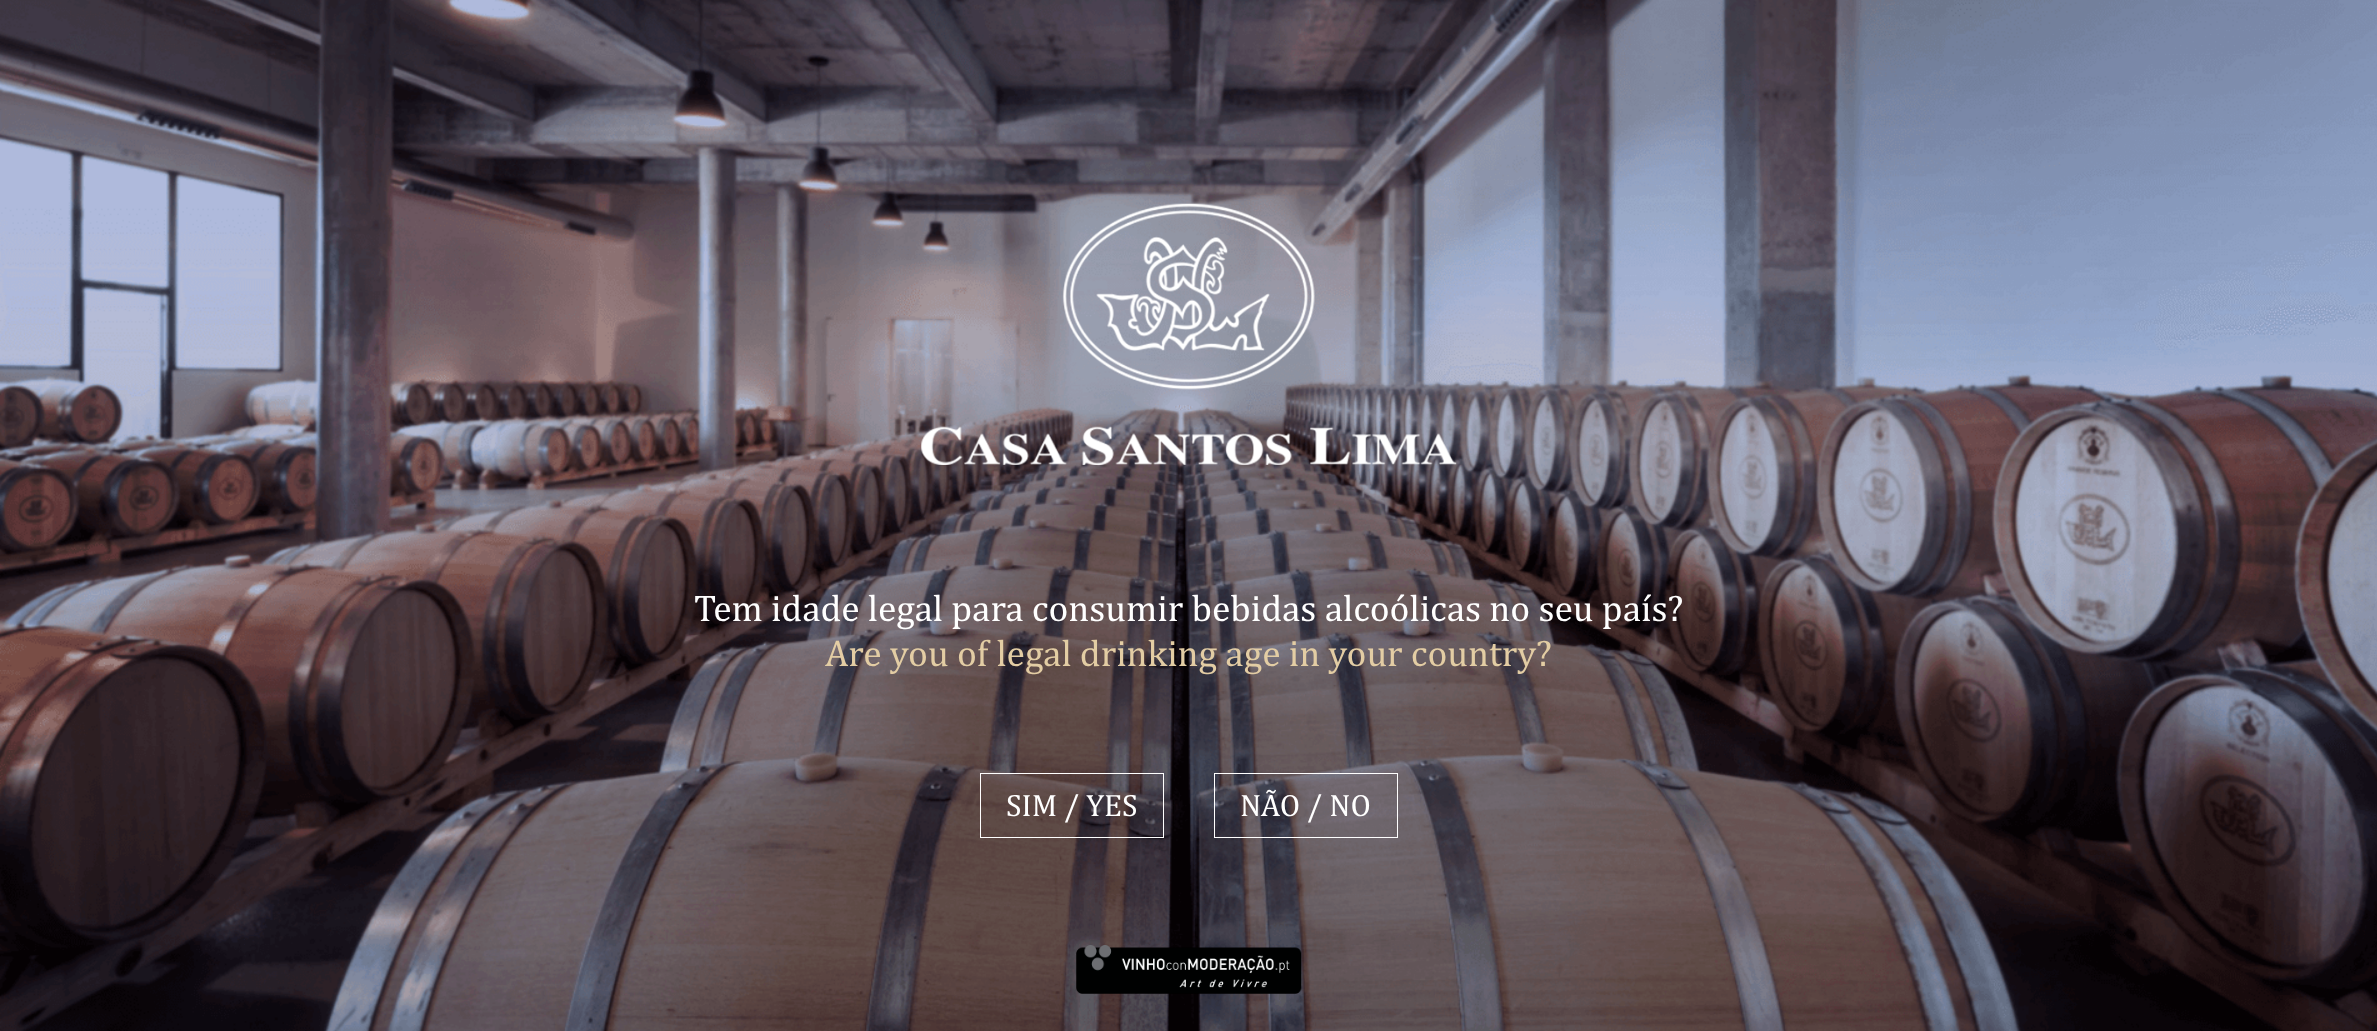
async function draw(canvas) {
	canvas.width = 2377;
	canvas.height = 1031;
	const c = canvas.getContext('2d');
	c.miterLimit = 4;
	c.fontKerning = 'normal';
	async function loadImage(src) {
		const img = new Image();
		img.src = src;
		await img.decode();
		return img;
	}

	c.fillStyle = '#fff';
	c.fillRect(0, 0, 2377, 1031);
	c.drawImage(await loadImage('img1.png'), 0, 0, 2377, 1031);
	c.drawImage(await loadImage('img2.png'), 921, 203, 536, 262);
	c.font = '37.5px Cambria';
	c.fillText('Tem idade legal para consumir bebidas alcoólicas no seu país?', 694, 621);
	c.fillStyle = '#e3cda4';
	c.fillText('Are you of legal drinking age in your country?', 825, 666);
	c.strokeStyle = '#fff';
	c.strokeRect(980.5, 773.5, 183, 64);
	c.font = '31.25px Cambria';
	c.fillStyle = '#fff';
	c.fillText('SIM / YES', 1006, 816);
	c.strokeRect(1214.5, 773.5, 183, 64);
	c.fillText('NÃO / NO', 1240, 816);
	c.drawImage(await loadImage('img3.png'), 1076, 945, 226, 49);
}

draw(document.querySelector('canvas'));
